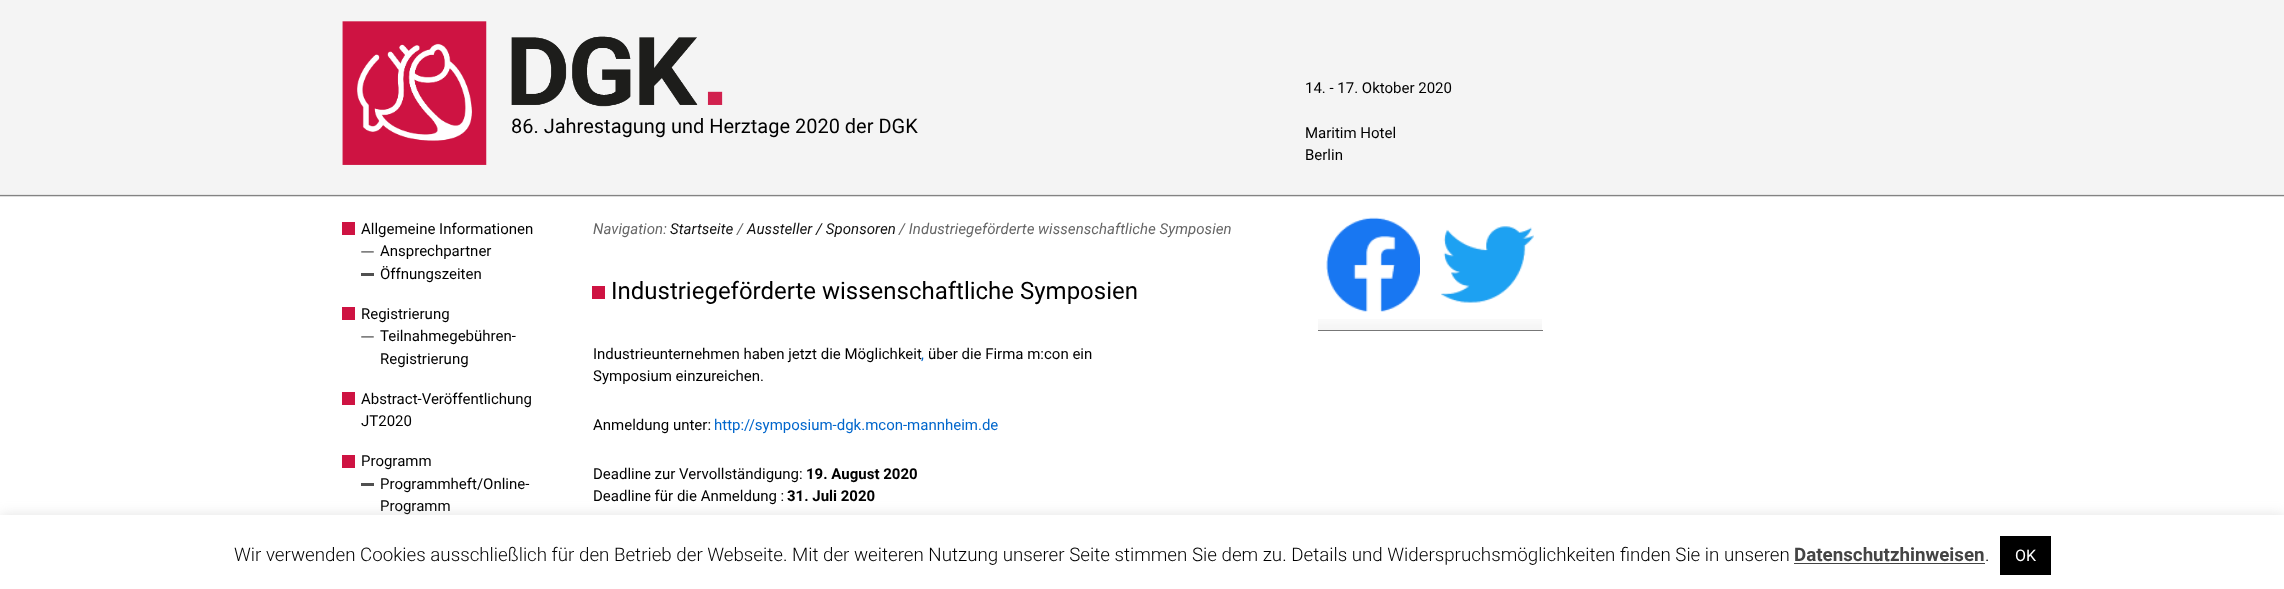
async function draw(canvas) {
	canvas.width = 2284;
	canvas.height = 589;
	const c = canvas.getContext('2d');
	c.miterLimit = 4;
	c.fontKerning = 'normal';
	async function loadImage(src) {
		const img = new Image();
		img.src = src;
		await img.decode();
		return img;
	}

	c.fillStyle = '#fff';
	c.fillRect(0, 0, 2284, 589);
	c.drawImage(await loadImage('img1.png'), 0, 0, 2284, 197);
	c.drawImage(await loadImage('img2.png'), 342, 21, 145, 144);
	c.drawImage(await loadImage('img3.png'), 511, 36, 212, 71);
	c.font = '20px Roboto';
	c.fillStyle = '#000';
	c.fillText('86. Jahrestagung und Herztage 2020 der DGK', 511, 133);
	c.font = '15px Roboto';
	for (const [text, x, y] of [
		['14. - 17. Oktober 2020', 1305, 93],
		['Maritim Hotel', 1305, 138],
		['Berlin', 1305, 160],
	]) {
		c.fillText(text, x, y);
	}
	c.fillStyle = '#ce1342';
	c.fillRect(342, 222, 13, 13);
	c.fillStyle = '#000';
	c.fillText('Allgemeine Informationen', 361, 234);
	c.drawImage(await loadImage('img4.png'), 361, 251, 13, 2);
	c.fillText('Ansprechpartner', 380, 256);
	c.fillStyle = '#505050';
	c.fillRect(361, 273, 13, 3);
	c.fillStyle = '#000';
	c.fillText('Öffnungszeiten', 380, 279);
	c.fillStyle = '#ce1342';
	c.fillRect(342, 307, 13, 13);
	c.fillStyle = '#000';
	c.fillText('Registrierung', 361, 319);
	c.drawImage(await loadImage('img4.png'), 361, 336, 13, 2);
	c.fillText('Teilnahmegebühren-', 380, 341);
	c.fillText('Registrierung', 380, 364);
	c.fillStyle = '#ce1342';
	c.fillRect(342, 392, 13, 13);
	c.fillStyle = '#000';
	c.fillText('Abstract-Veröffentlichung', 361, 404);
	c.fillText('JT2020', 361, 426);
	c.fillStyle = '#ce1342';
	c.fillRect(342, 455, 13, 13);
	c.fillStyle = '#000';
	c.fillText('Programm', 361, 466);
	c.fillStyle = '#505050';
	c.fillRect(361, 483, 13, 3);
	c.fillStyle = '#000';
	c.fillText('Programmheft/Online-', 380, 489);
	c.fillText('Programm', 380, 511);
	c.font = 'italic 15px Roboto';
	c.fillStyle = '#666';
	c.fillText('Navigation:', 593, 234);
	c.fillStyle = '#111';
	c.fillText('Startseite', 670, 234);
	c.fillStyle = '#666';
	c.fillText('/', 737, 234);
	c.fillStyle = '#111';
	c.fillText('Aussteller / Sponsoren', 747, 234);
	c.fillStyle = '#666';
	c.fillText('/ Industriegeförderte wissenschaftliche Symposien', 899, 234);
	c.font = '24px Roboto';
	c.fillStyle = '#000';
	c.fillText('Industriegeförderte wissenschaftliche Symposien', 611, 299);
	c.fillStyle = '#ce1342';
	c.fillRect(592, 286, 13, 13);
	c.font = '15px Roboto';
	c.fillStyle = '#000';
	c.fillText('Industrieunternehmen haben jetzt die Möglichkeit', 593, 359);
	c.fillStyle = '#06c';
	c.fillText(',', 921, 359);
	c.fillStyle = '#000';
	for (const [text, x, y] of [
		['über die Firma m:con ein', 928, 359],
		['Symposium einzureichen.', 593, 381],
		['Anmeldung unter:', 593, 430],
	]) {
		c.fillText(text, x, y);
	}
	c.fillStyle = '#06c';
	c.fillText('http://symposium-dgk.mcon-mannheim.de', 714, 430);
	c.fillStyle = '#000';
	c.fillText('Deadline zur Vervollständigung:', 593, 479);
	c.font = 'bold 15px Roboto';
	c.fillText('19. August 2020', 806, 479);
	c.font = '15px Roboto';
	c.fillText('Deadline für die Anmeldung :', 593, 501);
	c.font = 'bold 15px Roboto';
	c.fillText('31. Juli 2020', 787, 501);
	c.drawImage(await loadImage('img5.png'), 1318, 319, 224, 11);
	c.fillStyle = '#777';
	c.fillRect(1318, 330, 225, 1);
	c.drawImage(await loadImage('img6.png'), 1326, 217, 94, 95);
	c.drawImage(await loadImage('img7.png'), 1441, 226, 93, 77);
	c.fillStyle = '#acabab4d';
	c.filter = 'blur(6px)';
	c.beginPath();
	c.rect(0, 514, 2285, 75);
	c.fill();
	c.filter = 'none';
	c.fillStyle = '#fff';
	c.fillRect(0, 515, 2284, 74);
	c.font = '300 18.75px Roboto';
	c.fillStyle = '#000';
	c.fillText('Wir verwenden Cookies ausschließlich für den Betrieb der Webseite. Mit der weiteren Nutzung unserer Seite stimmen Sie dem zu. Details und Widerspruchsmöglichkeiten finden Sie in unseren', 234, 561);
	c.font = 'bold 18.75px Roboto';
	c.fillStyle = '#444';
	c.fillText('Datenschutzhinweisen', 1794, 561);
	c.fillRect(1794, 563, 191, 1);
	c.font = '300 18.75px Roboto';
	c.fillStyle = '#000';
	c.fillText('.', 1985, 561);
	c.fillRect(2000, 536, 51, 39);
	c.font = '16px Roboto';
	c.fillStyle = '#fff';
	c.fillText('OK', 2015, 561);
}

draw(document.querySelector('canvas'));
